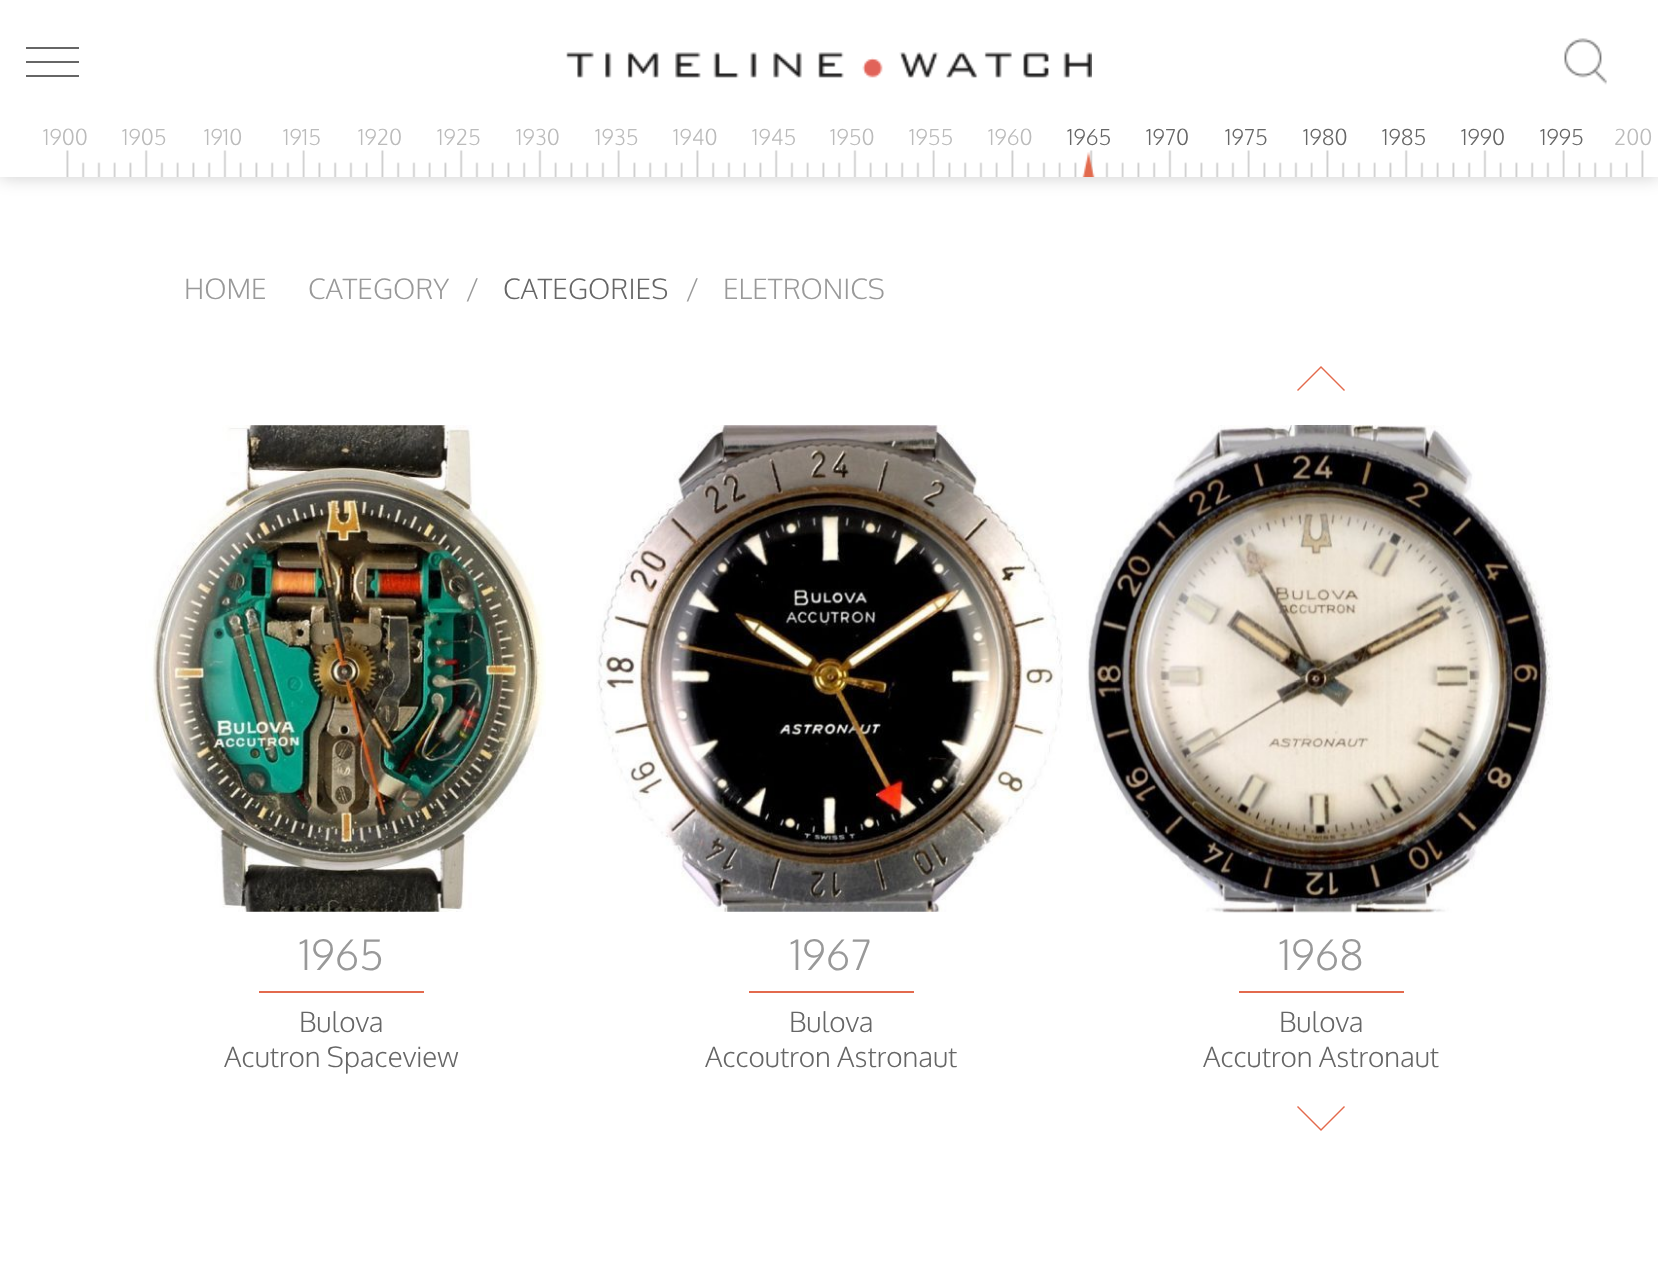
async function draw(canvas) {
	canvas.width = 1658;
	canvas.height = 1270;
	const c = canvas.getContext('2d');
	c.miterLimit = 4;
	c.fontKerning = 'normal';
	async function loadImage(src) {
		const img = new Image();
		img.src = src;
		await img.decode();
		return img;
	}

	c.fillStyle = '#fff';
	c.fillRect(0, 0, 1658, 1270);
	c.save();
	c.beginPath();
	c.moveTo(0, 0);
	c.lineTo(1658, 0);
	c.lineTo(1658, 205);
	c.lineTo(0, 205);
	c.closePath();
	c.moveTo(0, 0);
	c.lineTo(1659, 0);
	c.lineTo(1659, 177);
	c.lineTo(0, 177);
	c.closePath();
	c.clip('evenodd');
	c.fillStyle = '#00000033';
	c.filter = 'blur(9px)';
	c.beginPath();
	c.rect(0, 0, 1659, 177);
	c.fill();
	c.filter = 'none';
	c.restore();
	c.fillStyle = '#ffffffe6';
	c.fillRect(0, 176, 1658, 1);
	c.fillStyle = '#666';
	c.beginPath();
	c.moveTo(26, 47);
	c.lineTo(79, 47);
	c.lineTo(79, 49);
	c.lineTo(26, 49);
	c.closePath();
	c.moveTo(26, 61);
	c.lineTo(79, 61);
	c.lineTo(79, 63);
	c.lineTo(26, 63);
	c.closePath();
	c.moveTo(26, 75);
	c.lineTo(79, 75);
	c.lineTo(79, 77);
	c.lineTo(26, 77);
	c.closePath();
	c.fill();
	c.drawImage(await loadImage('img1.png'), 566, 52, 526, 26);
	c.drawImage(await loadImage('img2.png'), 1564, 38, 43, 47);
	c.drawImage(await loadImage('img3.png'), 66, 150, 1578, 27);
	c.font = '300 22px Oxygen';
	c.fillStyle = '#bbb';
	for (const [text, x, y] of [
		['1900', 43, 145],
		['1905', 122, 145],
		['1910', 204, 145],
		['1915', 283, 145],
		['1920', 358, 145],
		['1925', 437, 145],
		['1930', 516, 145],
		['1935', 595, 145],
		['1940', 673, 145],
		['1945', 752, 145],
		['1950', 830, 145],
		['1955', 909, 145],
		['1960', 988, 145],
	]) {
		c.fillText(text, x, y);
	}
	c.fillStyle = '#666';
	for (const [text, x, y] of [
		['1965', 1067, 145],
		['1970', 1146, 145],
		['1975', 1225, 145],
		['1980', 1303, 145],
		['1985', 1382, 145],
		['1990', 1461, 145],
		['1995', 1540, 145],
	]) {
		c.fillText(text, x, y);
	}
	c.fillStyle = '#bbb';
	c.fillText('200', 1614, 145);
	c.drawImage(await loadImage('img4.png'), 1082, 152, 13, 25);
	c.font = '300 28px Oxygen';
	c.fillStyle = '#999';
	for (const [text, x, y] of [
		['HOME', 184, 299],
		['CATEGORY', 308, 299],
		['/', 466, 299],
	]) {
		c.fillText(text, x, y);
	}
	c.fillStyle = '#666';
	c.fillText('CATEGORIES', 503, 299);
	c.fillStyle = '#999';
	c.fillText('/', 686, 299);
	c.fillText('ELETRONICS', 723, 299);
	c.drawImage(await loadImage('img5.png'), 145, 425, 401, 487);
	c.font = '300 42px Oxygen';
	c.fillText('1965', 299, 970);
	c.fillStyle = '#e36a4d';
	c.fillRect(259, 991, 165, 2);
	c.font = '300 28px Oxygen';
	c.fillStyle = '#666';
	c.fillText('Bulova', 299, 1032);
	c.fillText('Acutron Spaceview', 224, 1067);
	c.drawImage(await loadImage('img6.png'), 596, 425, 467, 487);
	c.font = '300 42px Oxygen';
	c.fillStyle = '#999';
	c.fillText('1967', 790, 970);
	c.fillStyle = '#e36a4d';
	c.fillRect(749, 991, 165, 2);
	c.font = '300 28px Oxygen';
	c.fillStyle = '#666';
	c.fillText('Bulova', 789, 1032);
	c.fillText('Accoutron Astronaut', 705, 1067);
	c.fillStyle = '#e36a4d';
	c.beginPath();
	c.moveTo(1321, 368);
	c.lineTo(1298, 391);
	c.lineTo(1297, 390);
	c.lineTo(1321, 366);
	c.lineTo(1345, 390);
	c.lineTo(1344, 391);
	c.closePath();
	c.fill();
	c.drawImage(await loadImage('img7.png'), 1086, 425, 467, 488);
	c.font = '300 42px Oxygen';
	c.fillStyle = '#999';
	c.fillText('1968', 1279, 970);
	c.fillStyle = '#e36a4d';
	c.fillRect(1239, 991, 165, 2);
	c.font = '300 28px Oxygen';
	c.fillStyle = '#666';
	c.fillText('Bulova', 1279, 1032);
	c.fillText('Accutron Astronaut', 1203, 1067);
	c.fillStyle = '#e36a4d';
	c.beginPath();
	c.moveTo(1321, 1129);
	c.lineTo(1298, 1106);
	c.lineTo(1297, 1107);
	c.lineTo(1321, 1131);
	c.lineTo(1345, 1107);
	c.lineTo(1344, 1106);
	c.closePath();
	c.fill();
}

draw(document.querySelector('canvas'));
